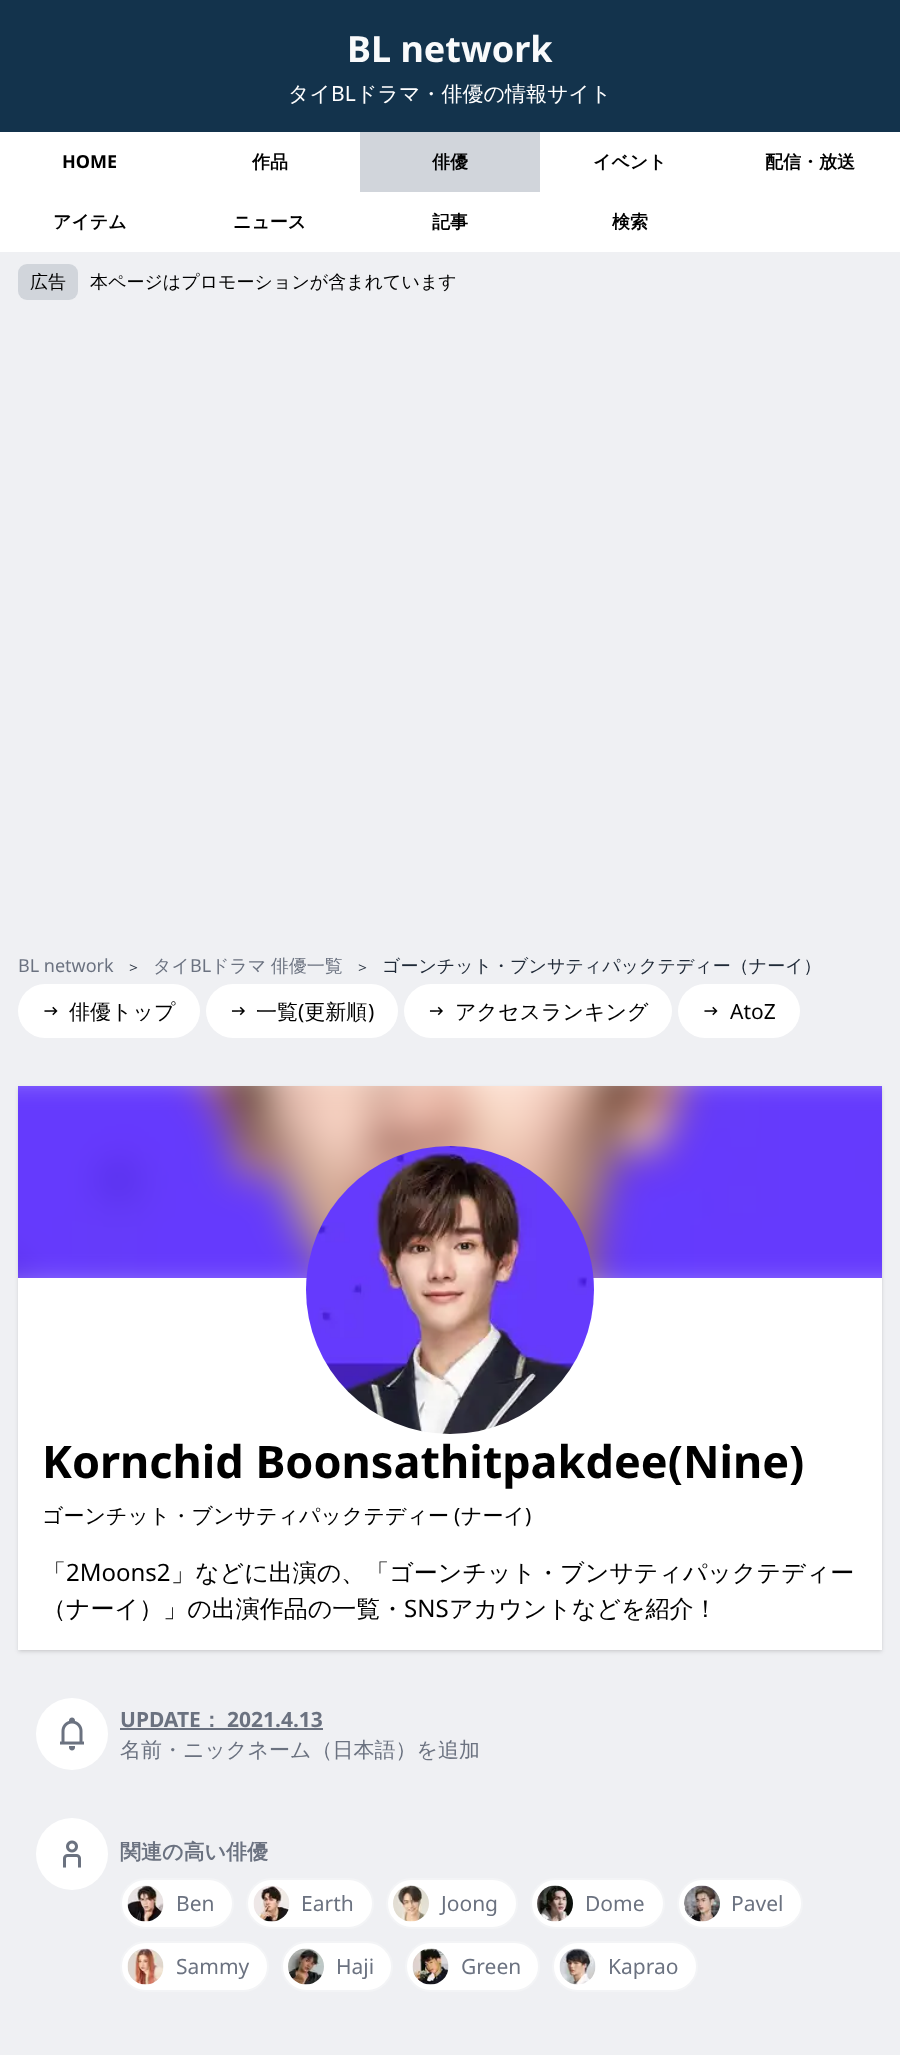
async function draw(canvas) {
	canvas.width = 900;
	canvas.height = 2055;
	const c = canvas.getContext('2d');
	c.miterLimit = 4;
	c.fontKerning = 'normal';
	async function loadImage(src) {
		const img = new Image();
		img.src = src;
		await img.decode();
		return img;
	}

	c.fillStyle = '#eff0f3';
	c.fillRect(0, 0, 900, 2055);
	c.fillStyle = '#13334c';
	c.fillRect(0, 0, 900, 132);
	c.font = 'bold 36px Noto Sans';
	c.fillStyle = '#f9fafb';
	c.fillText('BL network', 347, 62);
	c.font = '500 21px WenQuanYi Zen Hei';
	c.fillStyle = '#fff';
	c.fillText('タイ', 288, 101);
	c.font = '21px Noto Sans';
	c.fillText('BL', 331, 101);
	c.font = '500 21px WenQuanYi Zen Hei';
	c.fillText('ドラマ・俳優の情報サイト', 356, 101);
	c.fillRect(0, 132, 900, 120);
	c.font = 'bold 18px Noto Sans';
	c.fillStyle = '#000';
	c.fillText('HOME', 62, 168);
	c.font = 'bold 18px WenQuanYi Zen Hei';
	c.fillText('作品', 252, 168);
	c.fillStyle = '#d1d5db';
	c.fillRect(360, 132, 180, 60);
	c.fillStyle = '#000';
	for (const [text, x, y] of [
		['俳優', 432, 168],
		['イベント', 593, 168],
		['配信・放送', 765, 168],
		['アイテム', 53, 228],
		['ニュース', 233, 228],
		['記事', 432, 228],
		['検索', 612, 228],
	]) {
		c.fillText(text, x, y);
	}
	c.fillStyle = '#d1d5db';
	c.beginPath();
	c.roundRect(18, 264, 60, 36, 9);
	c.fill();
	c.font = '500 18px WenQuanYi Zen Hei';
	c.fillStyle = '#000';
	c.fillText('広告', 30, 288);
	c.fillText('本ページはプロモーションが含まれています', 90, 288);
	c.font = '18px Noto Sans';
	c.fillStyle = '#6b7280';
	c.fillText('BL network', 18, 972);
	c.font = '500 15px WenQuanYi Zen Hei';
	c.fillStyle = '#1f2937';
	c.fillText('＞', 126, 972);
	c.font = '500 18px WenQuanYi Zen Hei';
	c.fillStyle = '#6b7280';
	c.fillText('タイ', 153, 972);
	c.font = '18px Noto Sans';
	c.fillText('BL', 190, 972);
	c.wordSpacing = '-1px';
	c.font = '500 18px WenQuanYi Zen Hei';
	c.fillText('ドラマ 俳優一覧', 211, 972);
	c.wordSpacing = '0px';
	c.font = '500 15px WenQuanYi Zen Hei';
	c.fillStyle = '#1f2937';
	c.fillText('＞', 355, 972);
	c.font = '500 18px WenQuanYi Zen Hei';
	c.fillText('ゴーンチット・ブンサティパックテディー（ナーイ）', 382, 972);
	c.fillStyle = '#fff';
	c.beginPath();
	c.roundRect(18, 984, 182, 54, 27);
	c.fill();
	c.drawImage(await loadImage('img1.png'), 44, 1006, 14, 10);
	c.font = '500 21px WenQuanYi Zen Hei';
	c.fillStyle = '#000';
	c.fillText('俳優トップ', 69, 1019);
	c.fillStyle = '#fff';
	c.beginPath();
	c.roundRect(206, 984, 192, 54, 27);
	c.fill();
	c.drawImage(await loadImage('img2.png'), 231, 1006, 14, 10);
	c.fillStyle = '#000';
	c.fillText('一覧 更新順', 256, 1019);
	c.font = '21px Noto Sans';
	c.fillText('(', 298, 1019);
	c.fillText(')', 368, 1019);
	c.fillStyle = '#fff';
	c.beginPath();
	c.roundRect(404, 984, 268, 54, 27);
	c.fill();
	c.drawImage(await loadImage('img2.png'), 429, 1006, 14, 10);
	c.font = '500 21px WenQuanYi Zen Hei';
	c.fillStyle = '#000';
	c.fillText('アクセスランキング', 455, 1019);
	c.fillStyle = '#fff';
	c.beginPath();
	c.roundRect(678, 984, 122, 54, 27);
	c.fill();
	c.drawImage(await loadImage('img1.png'), 704, 1006, 14, 10);
	c.font = '21px Noto Sans';
	c.fillStyle = '#000';
	c.fillText('AtoZ', 730, 1019);
	c.fillStyle = '#0000001a';
	c.filter = 'blur(1.5px)';
	c.beginPath();
	c.rect(20, 1089, 861, 561);
	c.fill();
	c.filter = 'none';
	c.filter = 'blur(2px)';
	c.beginPath();
	c.rect(18, 1088, 864, 564);
	c.fill();
	c.filter = 'none';
	c.fillStyle = '#fff';
	c.fillRect(18, 1086, 864, 564);
	c.drawImage(await loadImage('img3.png'), 18, 1086, 864, 192);
	c.drawImage(await loadImage('img4.png'), 306, 1146, 288, 288);
	c.font = 'bold 45px Noto Sans';
	c.fillStyle = '#000';
	c.fillText('Kornchid Boonsathitpakdee(Nine)', 42, 1478);
	c.font = '500 21px WenQuanYi Zen Hei';
	c.fillText('ゴーンチット・ブンサティパックテディー', 42, 1523);
	c.font = '21px Noto Sans';
	c.fillText('(', 454, 1523);
	c.font = '500 21px WenQuanYi Zen Hei';
	c.fillText('ナーイ', 461, 1523);
	c.font = '21px Noto Sans';
	c.fillText(')', 525, 1523);
	c.font = '500 24px WenQuanYi Zen Hei';
	c.fillText('「', 42, 1581);
	c.font = '24px Noto Sans';
	c.fillText('2Moons2', 66, 1581);
	c.font = '500 24px WenQuanYi Zen Hei';
	c.fillText('」などに出演の、「ゴーンチット・ブンサティパックテディー', 171, 1581);
	c.fillText('（ナーイ）」の出演作品の一覧・', 42, 1617);
	c.font = '24px Noto Sans';
	c.fillText('SNS', 404, 1617);
	c.font = '500 24px WenQuanYi Zen Hei';
	c.fillText('アカウントなどを紹介！', 449, 1617);
	c.fillStyle = '#fff';
	c.beginPath();
	c.arc(72, 1734, 36, 0, 2 * Math.PI);
	c.fill();
	c.drawImage(await loadImage('img5.png'), 60, 1717, 24, 34);
	c.font = 'bold 21px Noto Sans';
	c.fillStyle = '#6b7280';
	c.fillText('UPDATE', 120, 1727);
	c.font = 'bold 21px WenQuanYi Zen Hei';
	c.fillText('：', 201, 1727);
	c.fillRect(120, 1728, 203, 2);
	c.font = 'bold 21px Noto Sans';
	c.fillText('2021.4.13', 227, 1727);
	c.font = '500 21px WenQuanYi Zen Hei';
	c.fillText('名前・ニックネーム（日本語）を追加', 120, 1757);
	c.fillStyle = '#fff';
	c.beginPath();
	c.arc(72, 1854, 36, 0, 2 * Math.PI);
	c.fill();
	c.drawImage(await loadImage('img6.png'), 63, 1840, 18, 28);
	c.font = 'bold 21px WenQuanYi Zen Hei';
	c.fillStyle = '#6b7280';
	c.fillText('関連の高い俳優', 120, 1859);
	c.fillStyle = '#fff';
	c.beginPath();
	c.roundRect(121, 1879, 112, 49, 24.5);
	c.fill();
	c.strokeStyle = '#f3f4f6';
	c.lineWidth = 2;
	c.stroke();
	c.drawImage(await loadImage('img7.png'), 127, 1885, 37, 37);
	c.font = '21px Noto Sans';
	c.fillStyle = '#6b7280';
	c.fillText('Ben', 176, 1911);
	c.fillStyle = '#fff';
	c.beginPath();
	c.roundRect(247, 1879, 126, 49, 24.5);
	c.fill();
	c.stroke();
	c.drawImage(await loadImage('img8.png'), 253, 1885, 37, 37);
	c.fillStyle = '#6b7280';
	c.fillText('Earth', 301, 1911);
	c.fillStyle = '#fff';
	c.beginPath();
	c.roundRect(387, 1879, 130, 49, 24.5);
	c.fill();
	c.stroke();
	c.drawImage(await loadImage('img9.png'), 393, 1885, 36, 37);
	c.fillStyle = '#6b7280';
	c.fillText('Joong', 441, 1911);
	c.fillStyle = '#fff';
	c.beginPath();
	c.roundRect(531, 1879, 133, 49, 24.5);
	c.fill();
	c.stroke();
	c.drawImage(await loadImage('img10.png'), 537, 1885, 36, 37);
	c.fillStyle = '#6b7280';
	c.fillText('Dome', 585, 1911);
	c.fillStyle = '#fff';
	c.beginPath();
	c.roundRect(678, 1879, 124, 49, 24.5);
	c.fill();
	c.stroke();
	c.drawImage(await loadImage('img11.png'), 684, 1885, 36, 37);
	c.fillStyle = '#6b7280';
	c.fillText('Pavel', 731, 1911);
	c.fillStyle = '#fff';
	c.beginPath();
	c.roundRect(121, 1942, 147, 49, 24.5);
	c.fill();
	c.stroke();
	c.drawImage(await loadImage('img12.png'), 127, 1948, 37, 37);
	c.fillStyle = '#6b7280';
	c.fillText('Sammy', 176, 1974);
	c.fillStyle = '#fff';
	c.beginPath();
	c.roundRect(282, 1942, 110, 49, 24.5);
	c.fill();
	c.stroke();
	c.drawImage(await loadImage('img13.png'), 288, 1948, 36, 37);
	c.fillStyle = '#6b7280';
	c.fillText('Haji', 336, 1974);
	c.fillStyle = '#fff';
	c.beginPath();
	c.roundRect(406, 1942, 133, 49, 24.5);
	c.fill();
	c.stroke();
	c.drawImage(await loadImage('img14.png'), 412, 1948, 37, 37);
	c.fillStyle = '#6b7280';
	c.fillText('Green', 461, 1974);
	c.fillStyle = '#fff';
	c.beginPath();
	c.roundRect(553, 1942, 144, 49, 24.5);
	c.fill();
	c.stroke();
	c.drawImage(await loadImage('img15.png'), 559, 1948, 37, 37);
	c.fillStyle = '#6b7280';
	c.fillText('Kaprao', 608, 1974);
}

draw(document.querySelector('canvas'));
